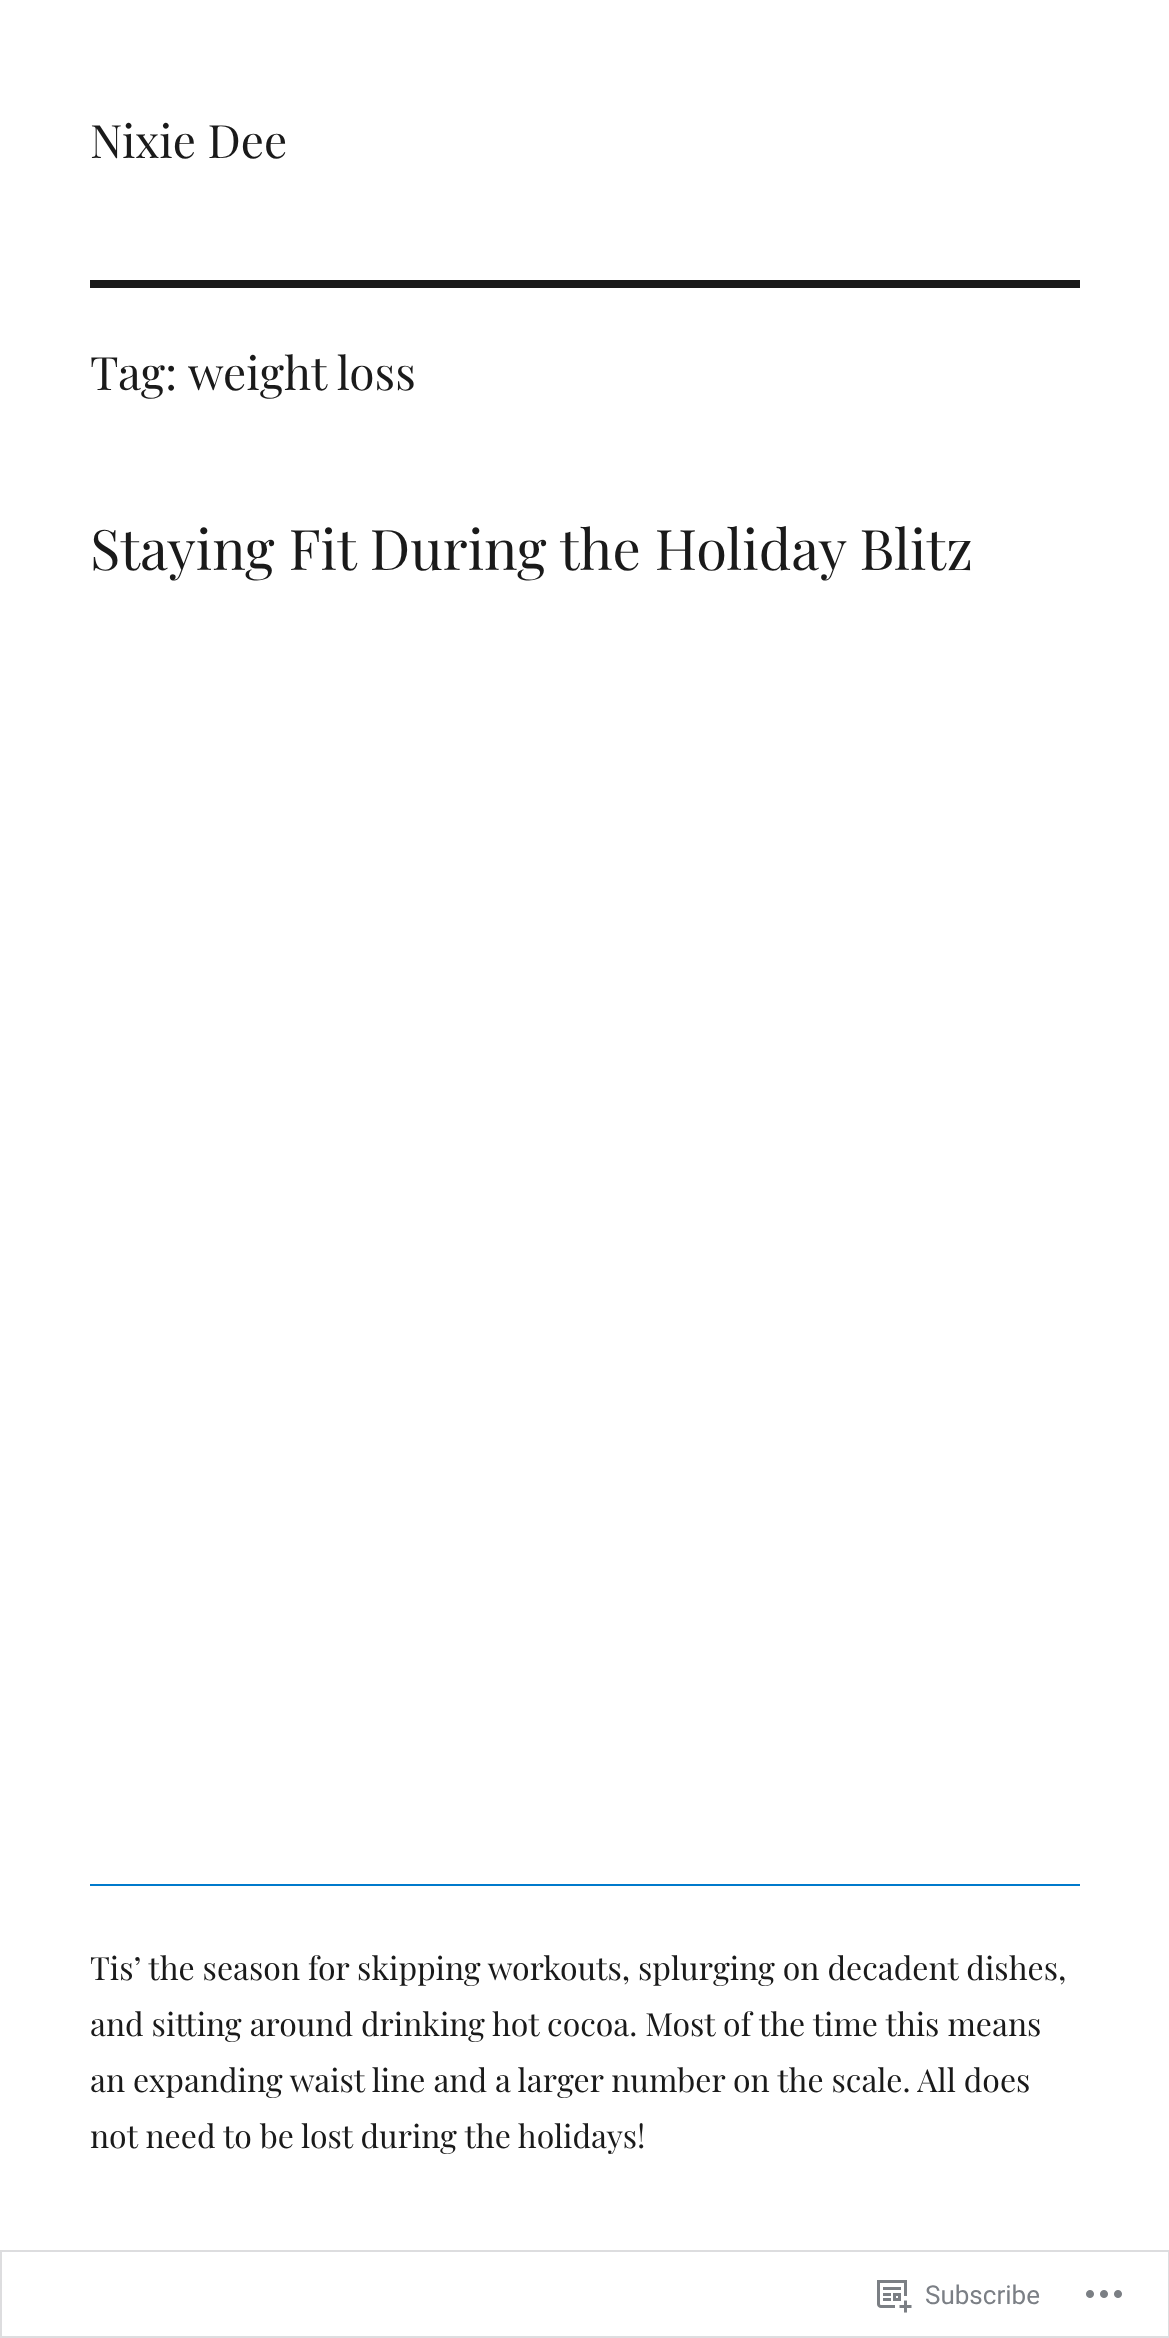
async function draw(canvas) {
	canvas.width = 1169;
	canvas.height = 2338;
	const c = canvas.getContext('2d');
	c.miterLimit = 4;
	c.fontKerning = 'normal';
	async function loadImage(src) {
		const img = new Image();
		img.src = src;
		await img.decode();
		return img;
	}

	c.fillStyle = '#fff';
	c.fillRect(0, 0, 1169, 2338);
	c.font = '46px Playfair Display';
	c.fillStyle = '#1a1a1a';
	c.fillText('Nixie Dee', 90, 158);
	c.fillRect(90, 280, 990, 8);
	c.fillText('Tag:', 90, 390);
	c.fillText('weight loss', 188, 390);
	c.font = '56px Playfair Display';
	c.fillText('Staying Fit During the Holiday Blitz', 90, 570);
	c.fillStyle = '#007acc';
	c.fillRect(90, 1884, 990, 2);
	c.font = '32px Playfair Display';
	c.fillStyle = '#1a1a1a';
	for (const [text, x, y] of [
		['Tis’ the season for skipping workouts, splurging on decadent dishes,', 90, 1980],
		['and sitting around drinking hot cocoa. Most of the time this means', 90, 2036],
		['an expanding waist line and a larger number on the scale. All does', 90, 2092],
		['not need to be lost during the holidays!', 90, 2148],
	]) {
		c.fillText(text, x, y);
	}
	c.strokeStyle = '#dcdcdefa';
	c.lineWidth = 2;
	c.strokeRect(1, 2251, 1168, 86);
	c.drawImage(await loadImage('img1.png'), 877, 2280, 35, 33);
	c.font = '26px Roboto';
	c.fillStyle = '#7b7f85';
	c.fillText('Subscribe', 925, 2304);
	c.drawImage(await loadImage('img2.png'), 1086, 2290, 36, 8);
}

draw(document.querySelector('canvas'));
